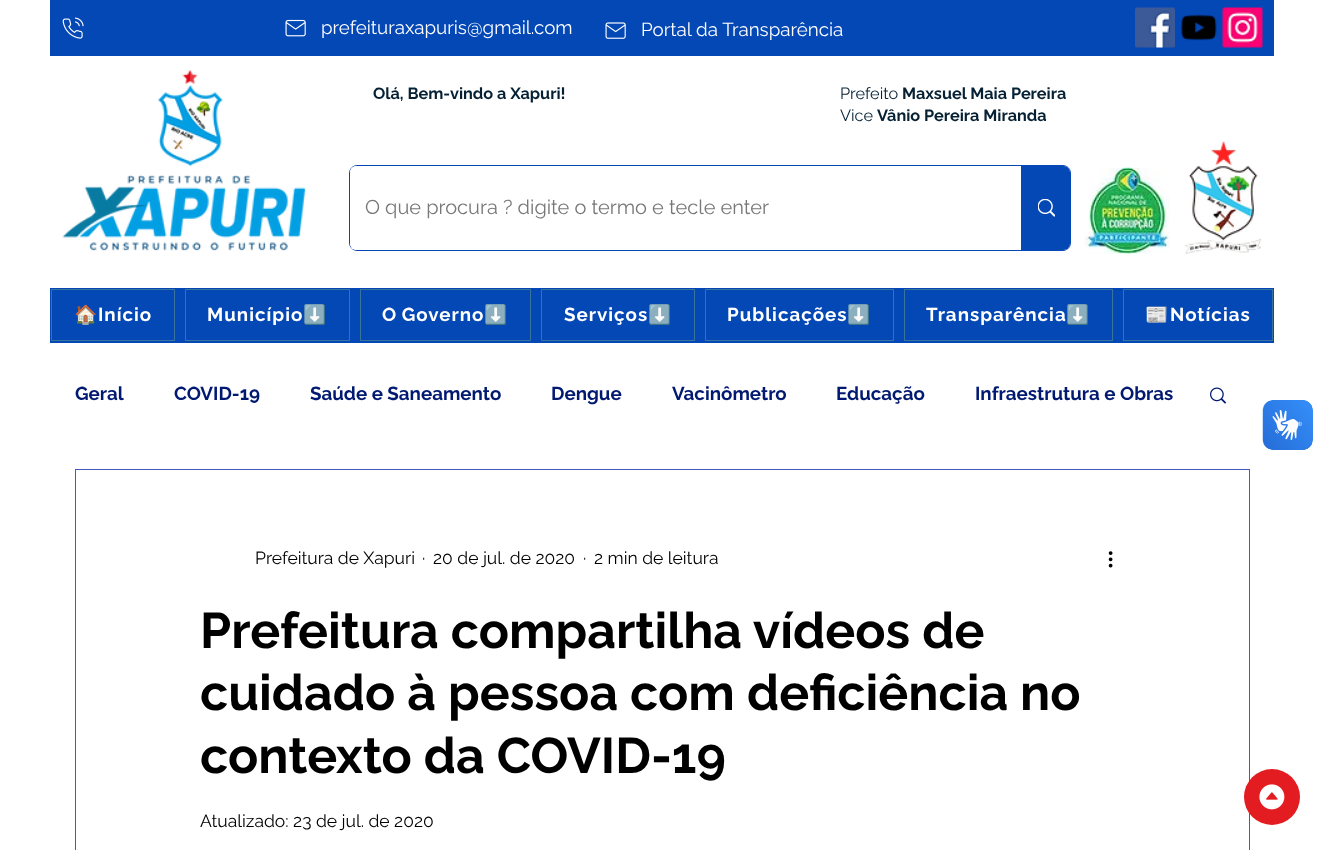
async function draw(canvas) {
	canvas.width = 1324;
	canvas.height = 850;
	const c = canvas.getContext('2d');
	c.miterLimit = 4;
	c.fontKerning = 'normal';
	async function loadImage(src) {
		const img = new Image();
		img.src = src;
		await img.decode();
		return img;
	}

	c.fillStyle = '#fff';
	c.fillRect(0, 0, 1324, 850);
	c.fillStyle = '#0448b6';
	c.fillRect(50, 0, 1224, 56);
	c.drawImage(await loadImage('img1.png'), 62, 17, 22, 22);
	c.drawImage(await loadImage('img2.png'), 285, 19, 21, 18);
	c.font = '18.75px Raleway';
	c.fillStyle = '#fff';
	c.fillText('prefeituraxapuris@gmail.com', 321, 34);
	c.drawImage(await loadImage('img3.png'), 605, 22, 21, 17);
	c.fillText('Portal da Transparência', 641, 36);
	c.drawImage(await loadImage('img4.png'), 1135, 7, 40, 41);
	c.drawImage(await loadImage('img5.png'), 1181, 14, 36, 27);
	c.drawImage(await loadImage('img6.png'), 1222, 7, 41, 41);
	c.drawImage(await loadImage('img7.png'), 62, 70, 244, 181);
	c.font = 'bold 16.25px Raleway';
	c.fillStyle = '#062134';
	c.fillText('Olá, Bem-vindo a Xapuri!', 373, 99);
	c.font = '16.25px Raleway';
	c.fillText('Prefeito', 840, 99);
	c.font = 'bold 16.25px Raleway';
	c.fillText('Maxsuel Maia Pereira', 902, 99);
	c.font = '16.25px Raleway';
	c.fillText('Vice', 840, 121);
	c.font = 'bold 16.25px Raleway';
	c.fillText('Vânio Pereira Miranda', 877, 121);
	c.beginPath();
	c.roundRect(349.5, 165.5, 721, 85, 7.5);
	c.strokeStyle = '#0448b6';
	c.stroke();
	c.fillStyle = '#fff';
	c.beginPath();
	c.roundRect(350, 166, 720, 84, 6);
	c.fill();
	c.font = '20px Raleway';
	c.fillStyle = '#787878';
	c.fillText('O que procura ? digite o termo e tecle enter', 365, 214);
	c.fillStyle = '#0448b6';
	c.beginPath();
	c.roundRect(1021, 166, 49, 84, [0, 6, 6, 0]);
	c.fill();
	c.drawImage(await loadImage('img8.png'), 1038, 199, 17, 18);
	c.drawImage(await loadImage('img9.png'), 1085, 167, 85, 87);
	c.drawImage(await loadImage('img10.png'), 1185, 141, 76, 113);
	c.fillRect(50, 288, 1224, 55);
	c.strokeStyle = '#3a739c';
	c.strokeRect(51.5, 289.5, 123, 51);
	c.letterSpacing = '1px';
	c.font = 'bold 18.75px Noto Color Emoji';
	c.fillStyle = '#fff';
	c.fillText('🏠', 74, 321);
	c.font = 'bold 18.75px Raleway';
	c.fillText('Início', 98, 321);
	c.strokeRect(185.5, 289.5, 164, 51);
	c.fillText('Município', 207, 321);
	c.font = 'bold 18.75px Noto Color Emoji';
	c.fillText('⬇️', 303, 321);
	c.strokeRect(360.5, 289.5, 170, 51);
	c.wordSpacing = '-1px';
	c.font = 'bold 18.75px Raleway';
	c.fillText('O Governo', 382, 321);
	c.wordSpacing = '0px';
	c.font = 'bold 18.75px Noto Color Emoji';
	c.fillText('⬇️', 484, 321);
	c.strokeRect(541.5, 289.5, 153, 51);
	c.font = 'bold 18.75px Raleway';
	c.fillText('Serviços', 564, 321);
	c.font = 'bold 18.75px Noto Color Emoji';
	c.fillText('⬇️', 648, 321);
	c.strokeRect(705.5, 289.5, 188, 51);
	c.font = 'bold 18.75px Raleway';
	c.fillText('Publicações', 727, 321);
	c.font = 'bold 18.75px Noto Color Emoji';
	c.fillText('⬇️', 847, 321);
	c.strokeRect(904.5, 289.5, 208, 51);
	c.font = 'bold 18.75px Raleway';
	c.fillText('Transparência', 926, 321);
	c.font = 'bold 18.75px Noto Color Emoji';
	c.fillText('⬇️', 1066, 321);
	c.strokeRect(1123.5, 289.5, 149, 51);
	c.fillText('📰', 1145, 321);
	c.font = 'bold 18.75px Raleway';
	c.fillText('Notícias', 1170, 321);
	c.fillStyle = '#0448b6';
	c.beginPath();
	c.moveTo(1255, 315);
	c.lineTo(1246.5, 305);
	c.lineTo(1245, 306);
	c.lineTo(1253, 315);
	c.lineTo(1245, 324);
	c.lineTo(1246.5, 325);
	c.closePath();
	c.fill();
	c.letterSpacing = '0px';
	c.fillStyle = '#011971';
	for (const [text, x, y] of [
		['Geral', 75, 400],
		['COVID-19', 174, 400],
		['Saúde e Saneamento', 310, 400],
		['Dengue', 551, 400],
		['Vacinômetro', 672, 400],
		['Educação', 836, 400],
		['Infraestrutura e Obras', 975, 400],
	]) {
		c.fillText(text, x, y);
	}
	c.drawImage(await loadImage('img11.png'), 1210, 387, 17, 17);
	c.strokeStyle = '#4459bb';
	c.strokeRect(75.5, 469.5, 1174, 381);
	c.font = '17.5px Raleway';
	c.fillStyle = '#000';
	for (const [text, x, y] of [
		['Prefeitura de Xapuri', 255, 564],
		['·', 422, 564],
		['20 de jul. de 2020', 433, 564],
		['·', 583, 564],
		['2 min de leitura', 594, 564],
	]) {
		c.fillText(text, x, y);
	}
	c.drawImage(await loadImage('img12.png'), 1108, 551, 5, 17);
	c.font = 'bold 50px Raleway';
	for (const [text, x, y] of [
		['Prefeitura compartilha vídeos de', 200, 648],
		['cuidado à pessoa com deficiência no', 200, 710],
		['contexto da COVID-19', 200, 773],
	]) {
		c.fillText(text, x, y);
	}
	c.font = '17.5px Raleway';
	c.fillText('Atualizado: 23 de jul. de 2020', 200, 827);
	c.fillStyle = '#e21c21';
	c.beginPath();
	c.arc(1272, 797, 28, 0, 2 * Math.PI);
	c.fill();
	c.drawImage(await loadImage('img13.png'), 1259, 784, 26, 26);
	c.drawImage(await loadImage('img14.png'), 1262, 400, 51, 50);
	c.drawImage(await loadImage('img15.png'), 1263, 400, 50, 50);
}

draw(document.querySelector('canvas'));
